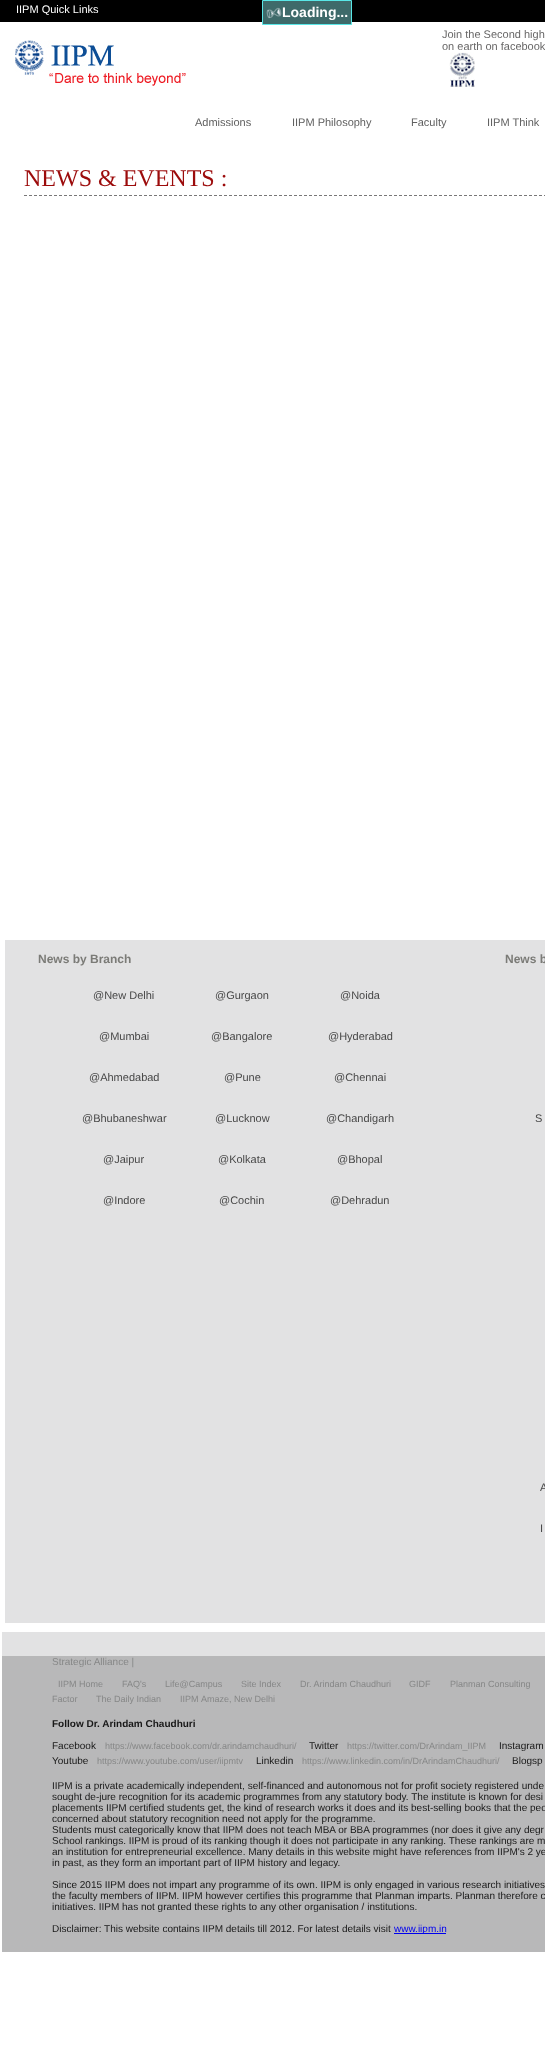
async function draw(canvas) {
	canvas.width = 545;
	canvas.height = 2058;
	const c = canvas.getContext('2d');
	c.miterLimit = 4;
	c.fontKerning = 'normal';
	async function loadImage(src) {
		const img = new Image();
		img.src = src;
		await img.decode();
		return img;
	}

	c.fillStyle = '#fff';
	c.fillRect(0, 0, 545, 2058);
	c.fillStyle = '#000';
	c.fillRect(0, 0, 545, 22);
	c.font = '11px Liberation Sans';
	c.fillStyle = '#fff';
	c.fillText('IIPM Quick Links', 16, 13);
	c.drawImage(await loadImage('img1.png'), 15, 40, 171, 46);
	c.fillStyle = '#686767';
	c.fillText('Join the Second high', 442, 38);
	c.fillText('on earth on facebook', 442, 50);
	c.drawImage(await loadImage('img2.png'), 449, 52, 26, 35);
	c.fillStyle = '#606060';
	for (const [text, x, y] of [
		['Admissions', 195, 126],
		['IIPM Philosophy', 292, 126],
		['Faculty', 411, 126],
		['IIPM Think', 487, 126],
	]) {
		c.fillText(text, x, y);
	}
	c.beginPath();
	c.moveTo(24, 195.5);
	c.lineTo(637, 195.5);
	c.strokeStyle = '#797878';
	c.setLineDash([3, 2]);
	c.stroke();
	c.font = '24px Liberation Serif';
	c.fillStyle = '#9c0b0b';
	c.fillText('NEWS & EVENTS :', 24, 186);
	c.fillStyle = '#e2e2e3';
	c.fillRect(5, 940, 540, 683);
	c.font = 'bold 12px Liberation Sans';
	c.fillStyle = '#7b7b77';
	c.fillText('News by Branch', 38, 963);
	c.font = '11px Liberation Sans';
	c.fillStyle = '#484848';
	for (const [text, x, y] of [
		['@New Delhi', 93, 999],
		['@Gurgaon', 215, 999],
		['@Noida', 340, 999],
		['@Mumbai', 99, 1040],
		['@Bangalore', 211, 1040],
		['@Hyderabad', 328, 1040],
		['@Ahmedabad', 89, 1081],
		['@Pune', 224, 1081],
		['@Chennai', 334, 1081],
		['@Bhubaneshwar', 82, 1122],
		['@Lucknow', 215, 1122],
		['@Chandigarh', 326, 1122],
		['@Jaipur', 103, 1163],
		['@Kolkata', 218, 1163],
		['@Bhopal', 337, 1163],
		['@Indore', 103, 1204],
		['@Cochin', 219, 1204],
		['@Dehradun', 330, 1204],
	]) {
		c.fillText(text, x, y);
	}
	c.font = 'bold 12px Liberation Sans';
	c.fillStyle = '#7b7b77';
	c.fillText('News b', 505, 963);
	c.font = '11px Liberation Sans';
	c.fillStyle = '#484848';
	for (const [text, x, y] of [
		['S', 535, 1122],
		['A', 540, 1491],
		['I', 540, 1532],
	]) {
		c.fillText(text, x, y);
	}
	c.fillStyle = '#e2e2e3';
	c.fillRect(2, 1632, 543, 24);
	c.fillStyle = '#b8b8b9';
	c.fillRect(2, 1656, 543, 296);
	c.font = '10px Liberation Sans';
	c.fillStyle = '#868787';
	c.fillText('Strategic Alliance |', 52, 1665);
	c.font = '9px Liberation Sans';
	for (const [text, x, y] of [
		['IIPM Home', 58, 1687],
		['FAQ\'s', 122, 1687],
		['Life@Campus', 165, 1687],
		['Site Index', 241, 1687],
		['Dr. Arindam Chaudhuri', 300, 1687],
		['GIDF', 409, 1687],
		['Planman Consulting', 450, 1687],
		['Factor', 52, 1702],
		['The Daily Indian', 96, 1702],
		['IIPM', 180, 1702],
		['Amaze, New Delhi', 201, 1702],
	]) {
		c.fillText(text, x, y);
	}
	c.font = 'bold 10px Liberation Sans';
	c.fillStyle = '#181818';
	c.fillText('Follow Dr. Arindam Chaudhuri', 52, 1727);
	c.font = '10px Liberation Sans';
	c.fillText('Facebook', 52, 1749);
	c.font = '9px Liberation Sans';
	c.fillStyle = '#868787';
	c.fillText('https://www.facebook.com/dr.arindamchaudhuri/', 105, 1749);
	c.font = '10px Liberation Sans';
	c.fillStyle = '#181818';
	c.fillText('Twitter', 309, 1749);
	c.font = '9px Liberation Sans';
	c.fillStyle = '#868787';
	c.fillText('https://twitter.com/DrArindam_IIPM', 347, 1749);
	c.font = '10px Liberation Sans';
	c.fillStyle = '#181818';
	c.fillText('Instagram', 499, 1749);
	c.fillText('Youtube', 52, 1764);
	c.font = '9px Liberation Sans';
	c.fillStyle = '#868787';
	c.fillText('https://www.youtube.com/user/iipmtv', 97, 1764);
	c.font = '10px Liberation Sans';
	c.fillStyle = '#181818';
	c.fillText('Linkedin', 256, 1764);
	c.font = '9px Liberation Sans';
	c.fillStyle = '#868787';
	c.fillText('https://www.linkedin.com/in/DrArindamChaudhuri/', 302, 1764);
	c.font = '10px Liberation Sans';
	c.fillStyle = '#181818';
	for (const [text, x, y] of [
		['Blogsp', 512, 1764],
		['IIPM is a private academically independent, self-financed and autonomous not for profit society registered unde', 52, 1789],
		['sought de-jure recognition for its academic programmes from any statutory body. The institute is known for desi', 52, 1800],
		['placements IIPM certified students get, the kind of research works it does and its best-selling books that the peo', 52, 1811],
		['concerned about statutory recognition need not apply for the programme.', 52, 1822],
		['Students must categorically know that IIPM does not teach MBA or BBA programmes (nor does it give any degr', 52, 1833],
		['School rankings. IIPM is proud of its ranking though it does not participate in any ranking. These rankings are m', 52, 1844],
		['an institution for entrepreneurial excellence. Many details in this website might have references from IIPM\'s 2 ye', 52, 1855],
		['in past, as they form an important part of IIPM history and legacy.', 52, 1866],
		['Since 2015 IIPM does not impart any programme of its own. IIPM is only engaged in various research initiatives', 52, 1888],
		['the faculty members of IIPM. IIPM however certifies this programme that Planman imparts. Planman therefore c', 52, 1899],
		['initiatives. IIPM has not granted these rights to any other organisation / institutions.', 52, 1910],
		['Disclaimer: This website contains IIPM details till 2012. For latest details visit', 52, 1932],
	]) {
		c.fillText(text, x, y);
	}
	c.fillStyle = '#00e';
	c.fillRect(394, 1933, 52, 1);
	c.fillText('www.iipm.in', 394, 1932);
	c.fillStyle = '#3e6a6a';
	c.beginPath();
	c.rect(262.5, 0.5, 89, 24);
	c.fill();
	c.strokeStyle = '#59e7e7';
	c.setLineDash([]);
	c.stroke();
	c.drawImage(await loadImage('img3.png'), 266, 7, 16, 12);
	c.font = 'bold 14px Liberation Sans';
	c.fillStyle = '#fff';
	c.fillText('Loading...', 282, 17);
}

draw(document.querySelector('canvas'));
